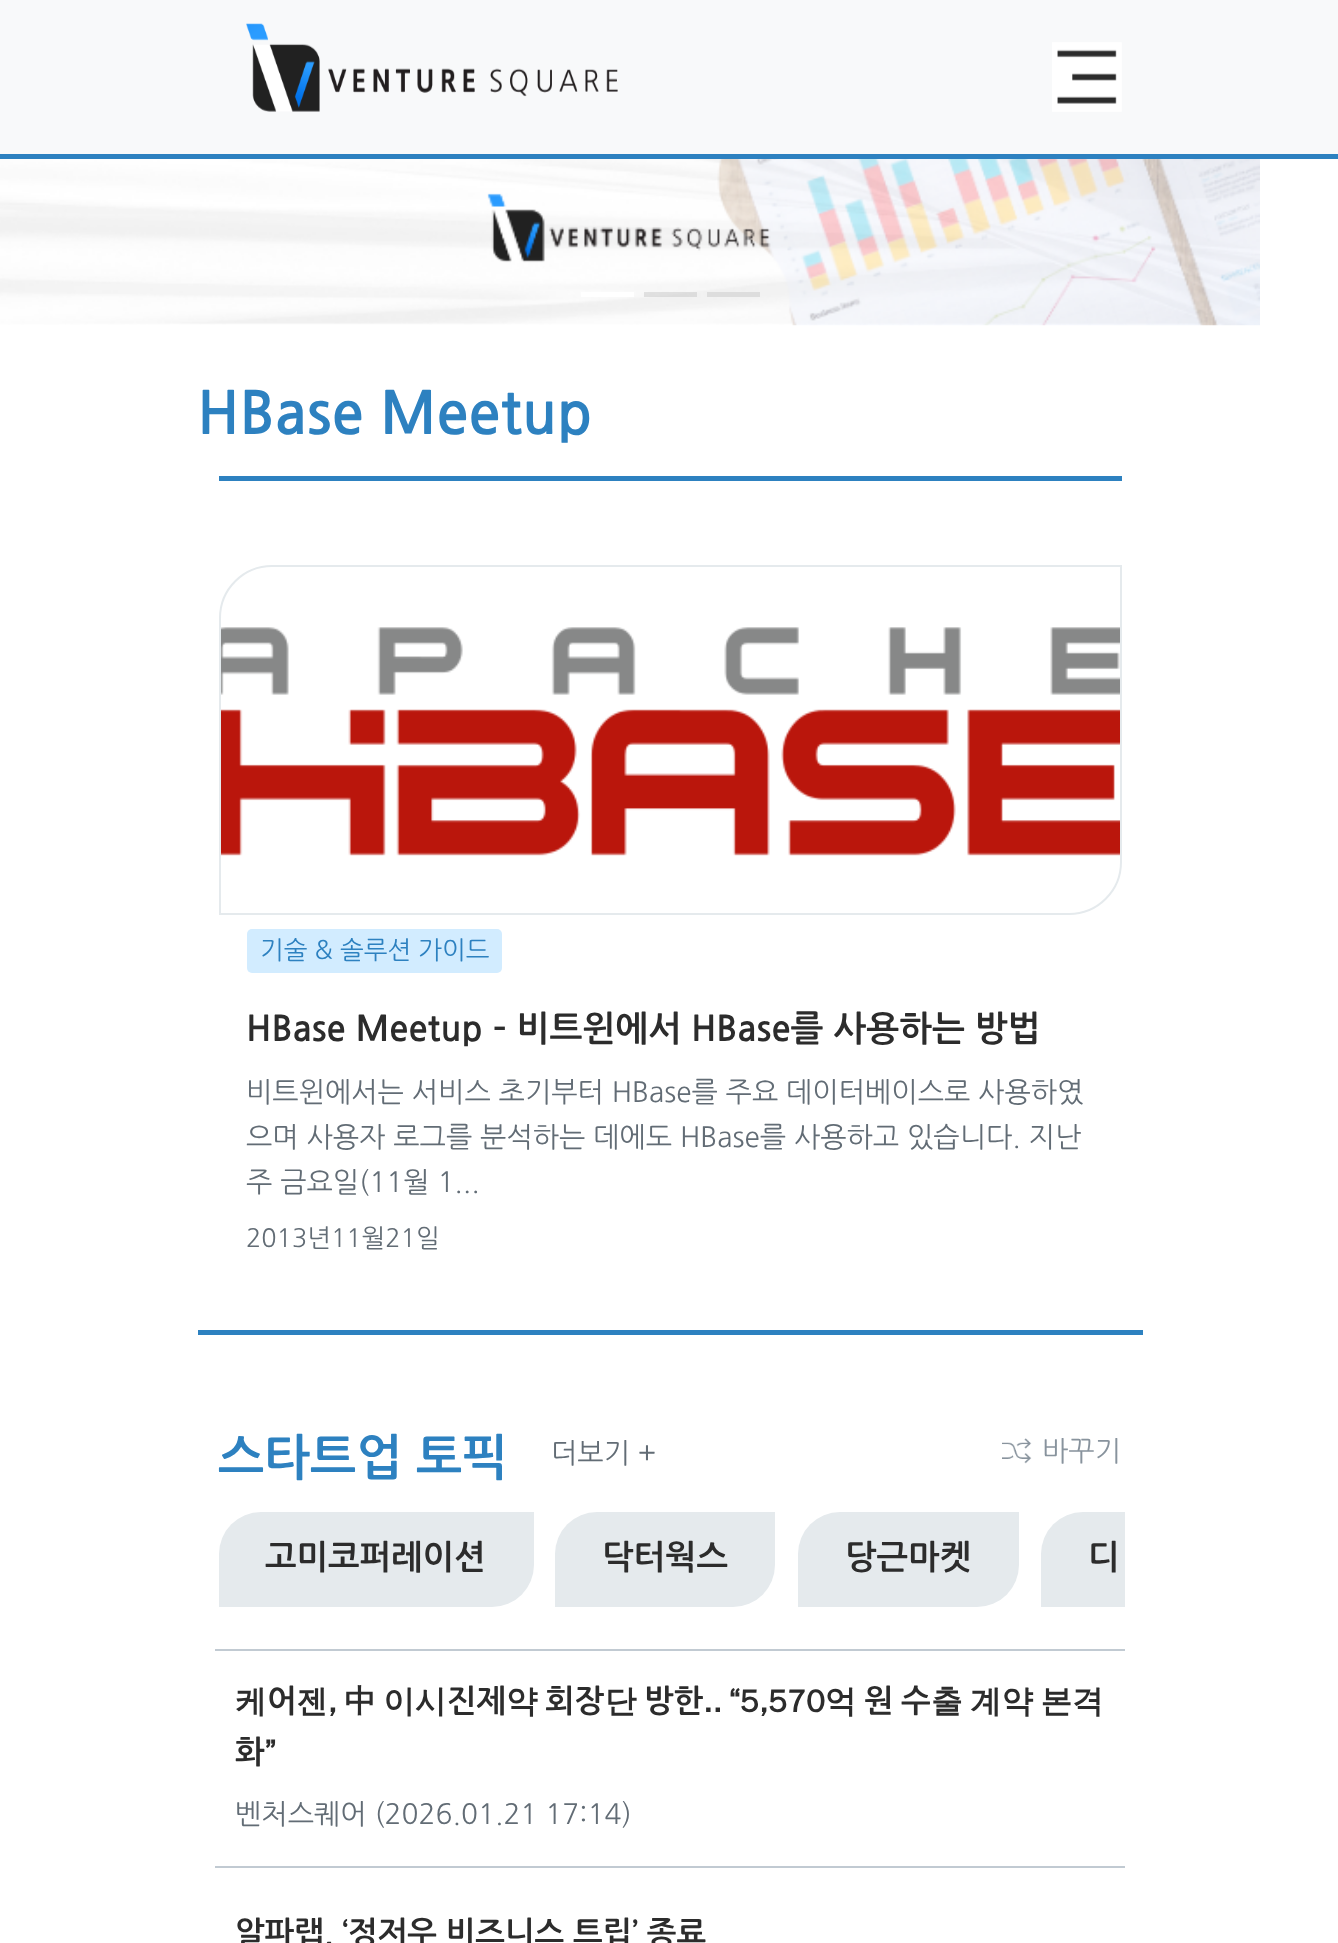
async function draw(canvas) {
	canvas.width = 1338;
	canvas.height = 1943;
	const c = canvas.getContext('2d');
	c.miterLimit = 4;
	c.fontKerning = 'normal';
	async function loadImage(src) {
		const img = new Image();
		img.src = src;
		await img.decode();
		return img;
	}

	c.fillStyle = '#fff';
	c.fillRect(0, 0, 1338, 1943);
	c.fillStyle = '#f8f9fa';
	c.fillRect(0, 0, 1338, 154);
	c.drawImage(await loadImage('img1.png'), 246, 23, 372, 89);
	c.drawImage(await loadImage('img2.png'), 1052, 42, 70, 70);
	c.fillStyle = '#2d81c0';
	c.fillRect(0, 154, 1338, 5);
	c.drawImage(await loadImage('img3.png'), 0, 159, 1260, 167);
	for (const [x, y, w, h, color] of [
		[581, 292, 53, 5, '#fff'],
		[644, 292, 53, 5, '#bebebe66'],
		[707, 292, 53, 5, '#ddd'],
	]) {
		c.fillStyle = color;
		c.fillRect(x, y, w, h);
	}
	c.font = 'bold 58.5px NanumGothic';
	c.fillStyle = '#2d81c0';
	c.fillText('HBase Meetup', 197, 434);
	c.fillRect(219, 476, 903, 5);
	c.drawImage(await loadImage('img4.png'), 221, 627, 899, 229);
	c.beginPath();
	c.roundRect(220, 566, 901, 348, [52, 0, 52, 0]);
	c.strokeStyle = '#e5eaed';
	c.lineWidth = 2;
	c.stroke();
	c.fillStyle = '#d2ecff';
	c.beginPath();
	c.roundRect(247, 929, 255, 44, 5);
	c.fill();
	c.font = '25.25px NanumGothic';
	c.fillStyle = '#2d81c0';
	c.fillText('기술 & 솔루션 가이드', 260, 959);
	c.font = 'bold 35px NanumGothic';
	c.fillStyle = '#2c2c2c';
	c.fillText('HBase Meetup – 비트윈에서 HBase를 사용하는 방법', 246, 1041);
	c.font = '28px NanumGothic';
	c.fillStyle = '#626c75';
	for (const [text, x, y] of [
		['비트윈에서는 서비스 초기부터 HBase를 주요 데이터베이스로 사용하였', 246, 1102],
		['으며 사용자 로그를 분석하는 데에도 HBase를 사용하고 있습니다. 지난', 246, 1147],
		['주 금요일(11월 1...', 246, 1192],
	]) {
		c.fillText(text, x, y);
	}
	c.font = '25.25px NanumGothic';
	c.fillText('2013년11월21일', 246, 1247);
	c.fillStyle = '#2d81c0';
	c.fillRect(198, 1330, 945, 5);
	c.font = 'bold 49px NanumGothic';
	c.fillText('스타트업 토픽', 218, 1475);
	c.font = '28px NanumGothic';
	c.fillStyle = '#626c75';
	c.fillText('더보기 +', 551, 1463);
	c.drawImage(await loadImage('img5.png'), 1002, 1438, 30, 26);
	c.fillStyle = '#88939d';
	c.fillText('바꾸기', 1042, 1461);
	c.fillStyle = '#e5eaed';
	c.beginPath();
	c.roundRect(219, 1512, 315, 95, [42, 0, 42, 0]);
	c.fill();
	c.font = 'bold 33.5px NanumGothic';
	c.fillStyle = '#2c2c2c';
	c.fillText('고미코퍼레이션', 265, 1569);
	c.fillStyle = '#e5eaed';
	c.beginPath();
	c.roundRect(555, 1512, 220, 95, [42, 0, 42, 0]);
	c.fill();
	c.fillStyle = '#2c2c2c';
	c.fillText('닥터웍스', 602, 1569);
	c.fillStyle = '#e5eaed';
	c.beginPath();
	c.roundRect(798, 1512, 221, 95, [42, 0, 42, 0]);
	c.fill();
	c.fillStyle = '#2c2c2c';
	c.fillText('당근마켓', 845, 1569);
	c.fillStyle = '#e5eaed';
	c.beginPath();
	c.roundRect(1041, 1512, 84, 95, [42, 0, 0, 0]);
	c.fill();
	c.fillStyle = '#2c2c2c';
	c.fillText('디', 1088, 1569);
	c.fillStyle = '#c1cad2';
	c.fillRect(215, 1649, 910, 2);
	c.fillRect(215, 1866, 910, 2);
	c.font = 'bold 31.5px WenQuanYi Zen Hei';
	c.fillStyle = '#2c2c2c';
	c.fillText('케', 235, 1712);
	c.font = 'bold 31.5px NanumGothic';
	c.fillText('어', 267, 1712);
	c.wordSpacing = '-2px';
	c.font = 'bold 31.5px WenQuanYi Zen Hei';
	c.fillText('젠, 中 이시', 296, 1712);
	c.wordSpacing = '0px';
	c.font = 'bold 31.5px NanumGothic';
	c.fillText('진제', 447, 1712);
	c.font = 'bold 31.5px WenQuanYi Zen Hei';
	c.fillText('약', 506, 1712);
	c.font = 'bold 31.5px NanumGothic';
	c.fillText('회장', 545, 1712);
	c.font = 'bold 31.5px WenQuanYi Zen Hei';
	c.fillText('단', 605, 1712);
	c.font = 'bold 31.5px NanumGothic';
	c.fillText('방한', 644, 1712);
	c.wordSpacing = '-2px';
	c.font = 'bold 31.5px WenQuanYi Zen Hei';
	c.fillText('.. “5,570억', 703, 1712);
	c.wordSpacing = '0px';
	c.font = 'bold 31.5px NanumGothic';
	c.fillText('원', 864, 1712);
	c.fillText('수', 901, 1712);
	c.wordSpacing = '-2px';
	c.font = 'bold 31.5px WenQuanYi Zen Hei';
	c.fillText('출 계약 본격', 931, 1712);
	c.wordSpacing = '0px';
	c.font = 'bold 31.5px NanumGothic';
	c.fillText('화', 235, 1763);
	c.font = 'bold 31.5px WenQuanYi Zen Hei';
	c.fillText('”', 265, 1763);
	c.font = '28px NanumGothic';
	c.fillStyle = '#626c75';
	c.fillText('벤처스퀘어 (2026.01.21 17:14)', 235, 1824);
	c.font = 'bold 31.5px NanumGothic';
	c.fillStyle = '#2c2c2c';
	c.fillText('알파랩, ‘정저우 비즈니스 트립’ 종료', 235, 1944);
}

draw(document.querySelector('canvas'));
